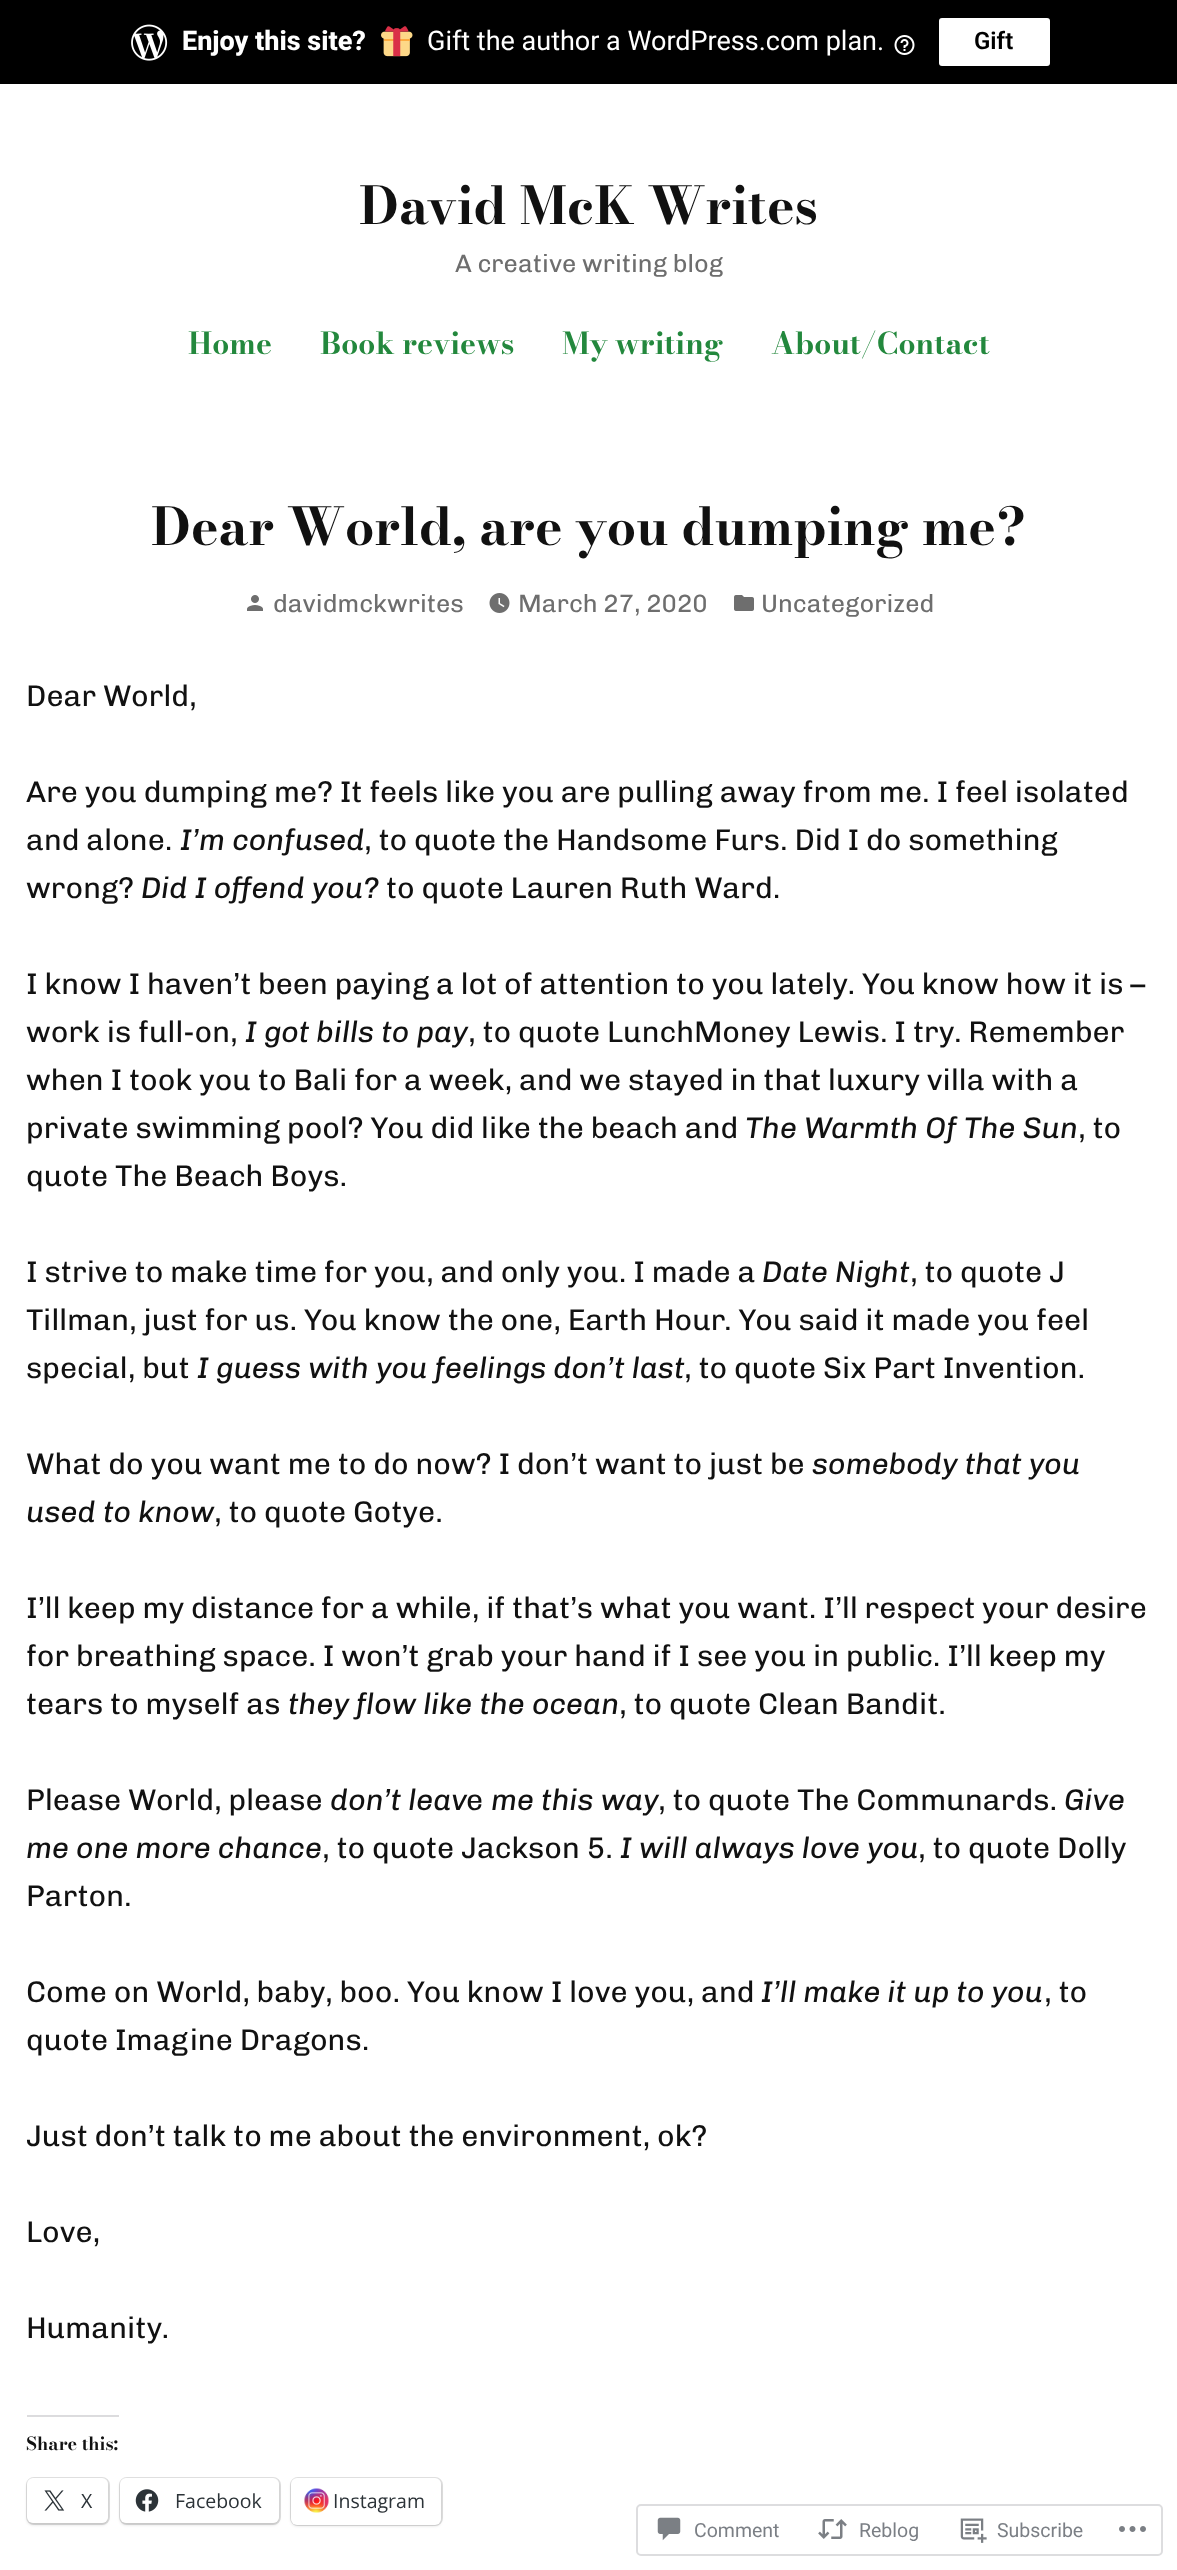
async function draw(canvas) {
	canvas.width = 1177;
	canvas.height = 2570;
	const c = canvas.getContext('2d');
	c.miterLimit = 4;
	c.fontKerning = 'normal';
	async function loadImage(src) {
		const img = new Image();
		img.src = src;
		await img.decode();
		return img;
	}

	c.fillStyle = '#fff';
	c.fillRect(0, 0, 1177, 2570);
	c.fillStyle = '#000';
	c.fillRect(0, 0, 1177, 84);
	c.drawImage(await loadImage('img1.png'), 131, 24, 37, 37);
	c.font = '800 27px Roboto';
	c.fillStyle = '#fff';
	c.fillText('Enjoy this site?', 182, 50);
	c.drawImage(await loadImage('img2.png'), 381, 26, 32, 31);
	c.font = '27px Roboto';
	c.fillText('Gift the author a WordPress.com plan.', 427, 50);
	c.drawImage(await loadImage('img3.png'), 894, 35, 21, 20);
	c.beginPath();
	c.roundRect(939, 18, 111, 48, 3);
	c.fill();
	c.font = '600 24px Roboto';
	c.fillStyle = '#000';
	c.fillText('Gift', 974, 49);
	c.font = 'bold 51.8px Bodoni Moda';
	c.fillStyle = '#111';
	c.fillText('David McK Writes', 359, 224);
	c.font = '25px Chivo';
	c.fillStyle = '#6e6e6e';
	c.fillText('A creative writing blog', 455, 272);
	c.font = 'bold 30px Bodoni Moda';
	c.fillStyle = '#23883d';
	for (const [text, x, y] of [
		['Home', 188, 354],
		['Book reviews', 320, 354],
		['My writing', 562, 354],
		['About/Contact', 771, 354],
	]) {
		c.fillText(text, x, y);
	}
	c.font = 'bold 51.8px Bodoni Moda';
	c.fillStyle = '#111';
	c.fillText('Dear World, are you dumping me?', 151, 545);
	c.drawImage(await loadImage('img4.png'), 247, 595, 16, 16);
	c.font = '25px Chivo';
	c.fillStyle = '#6e6e6e';
	c.fillText('davidmckwrites', 273, 612);
	c.drawImage(await loadImage('img5.png'), 489, 593, 21, 20);
	c.fillText('March 27, 2020', 518, 612);
	c.drawImage(await loadImage('img6.png'), 734, 595, 20, 16);
	c.fillText('Uncategorized', 761, 612);
	c.font = '30px Chivo';
	c.fillStyle = '#111';
	for (const [text, x, y] of [
		['Dear World,', 26, 706],
		['Are you dumping me? It feels like you are pulling away from me. I feel isolated', 26, 802],
		['and alone.', 26, 850],
	]) {
		c.fillText(text, x, y);
	}
	c.font = 'italic 30px Chivo';
	c.fillText('I’m confused', 180, 850);
	c.font = '30px Chivo';
	c.fillText(', to quote the Handsome Furs. Did I do something', 364, 850);
	c.fillText('wrong?', 26, 898);
	c.font = 'italic 30px Chivo';
	c.fillText('Did I offend you?', 141, 898);
	c.font = '30px Chivo';
	for (const [text, x, y] of [
		['to quote Lauren Ruth Ward.', 386, 898],
		['I know I haven’t been paying a lot of attention to you lately. You know how it is –', 26, 994],
		['work is full-on,', 26, 1042],
	]) {
		c.fillText(text, x, y);
	}
	c.font = 'italic 30px Chivo';
	c.fillText('I got bills to pay', 245, 1042);
	c.font = '30px Chivo';
	for (const [text, x, y] of [
		[', to quote LunchMoney Lewis. I try. Remember', 468, 1042],
		['when I took you to Bali for a week, and we stayed in that luxury villa with a', 26, 1090],
		['private swimming pool? You did like the beach and', 26, 1138],
	]) {
		c.fillText(text, x, y);
	}
	c.font = 'italic 30px Chivo';
	c.fillText('The Warmth Of The Sun', 745, 1138);
	c.font = '30px Chivo';
	for (const [text, x, y] of [
		[', to', 1078, 1138],
		['quote The Beach Boys.', 26, 1186],
		['I strive to make time for you, and only you. I made a', 26, 1282],
	]) {
		c.fillText(text, x, y);
	}
	c.font = 'italic 30px Chivo';
	c.fillText('Date Night', 762, 1282);
	c.font = '30px Chivo';
	for (const [text, x, y] of [
		[', to quote J', 910, 1282],
		['Tillman, just for us. You know the one, Earth Hour. You said it made you feel', 26, 1330],
		['special, but', 26, 1378],
	]) {
		c.fillText(text, x, y);
	}
	c.font = 'italic 30px Chivo';
	c.fillText('I guess with you feelings don’t last', 197, 1378);
	c.font = '30px Chivo';
	c.fillText(', to quote Six Part Invention.', 684, 1378);
	c.fillText('What do you want me to do now? I don’t want to just be', 26, 1474);
	c.font = 'italic 30px Chivo';
	c.fillText('somebody that you', 812, 1474);
	c.fillText('used to know', 26, 1522);
	c.font = '30px Chivo';
	for (const [text, x, y] of [
		[', to quote Gotye.', 214, 1522],
		['I’ll keep my distance for a while, if that’s what you want. I’ll respect your desire', 26, 1618],
		['for breathing space. I won’t grab your hand if I see you in public. I’ll keep my', 26, 1666],
		['tears to myself as', 26, 1714],
	]) {
		c.fillText(text, x, y);
	}
	c.font = 'italic 30px Chivo';
	c.fillText('they flow like the ocean', 288, 1714);
	c.font = '30px Chivo';
	c.fillText(', to quote Clean Bandit.', 619, 1714);
	c.fillText('Please World, please', 26, 1810);
	c.font = 'italic 30px Chivo';
	c.fillText('don’t leav', 330, 1810);
	c.font = '30px Chivo';
	c.fillText('e', 466, 1810);
	c.font = 'italic 30px Chivo';
	c.fillText('me this way', 491, 1810);
	c.font = '30px Chivo';
	c.fillText(', to quote The Communards.', 658, 1810);
	c.font = 'italic 30px Chivo';
	c.fillText('Give', 1064, 1810);
	c.fillText('me one more chance', 26, 1858);
	c.font = '30px Chivo';
	c.fillText(', to quote Jackson 5.', 322, 1858);
	c.font = 'italic 30px Chivo';
	c.fillText('I will always love you', 620, 1858);
	c.font = '30px Chivo';
	for (const [text, x, y] of [
		[', to quote Dolly', 918, 1858],
		['Parton.', 26, 1906],
		['Come on World, baby, boo. You know I love you, and', 26, 2002],
	]) {
		c.fillText(text, x, y);
	}
	c.font = 'italic 30px Chivo';
	c.fillText('I’ll make it up to you', 761, 2002);
	c.font = '30px Chivo';
	for (const [text, x, y] of [
		[', to', 1044, 2002],
		['quote Imagine Dragons.', 26, 2050],
		['Just don’t talk to me about the environment, ok?', 26, 2146],
		['Love,', 26, 2242],
		['Humanity.', 26, 2338],
	]) {
		c.fillText(text, x, y);
	}
	c.fillStyle = '#dcdcde';
	c.fillRect(27, 2415, 92, 2);
	c.font = 'bold 18px Bodoni Moda';
	c.fillStyle = '#111';
	c.fillText('Share this:', 26, 2450);
	c.beginPath();
	c.roundRect(27, 2478, 82, 46, 7);
	c.strokeStyle = '#e0e0e0';
	c.lineWidth = 2;
	c.stroke();
	c.fillStyle = '#0000001f';
	c.filter = 'blur(1.5px)';
	c.beginPath();
	c.roundRect(27, 2480, 81, 45, 6);
	c.fill();
	c.filter = 'none';
	c.fillStyle = '#fff';
	c.beginPath();
	c.roundRect(27, 2478, 81, 45, 6);
	c.fill();
	c.drawImage(await loadImage('img7.png'), 44, 2490, 21, 21);
	c.font = '19.5px Open Sans';
	c.fillStyle = '#2c3338';
	c.fillText('X', 81, 2508);
	c.beginPath();
	c.roundRect(120, 2478, 160, 46, 7);
	c.stroke();
	c.fillStyle = '#0000001f';
	c.filter = 'blur(1.5px)';
	c.beginPath();
	c.roundRect(120, 2480, 159, 45, 6);
	c.fill();
	c.filter = 'none';
	c.fillStyle = '#fff';
	c.beginPath();
	c.roundRect(120, 2478, 159, 45, 6);
	c.fill();
	c.drawImage(await loadImage('img8.png'), 135, 2489, 24, 23);
	c.fillStyle = '#2c3338';
	c.fillText('Facebook', 175, 2508);
	c.beginPath();
	c.roundRect(291, 2478, 151, 47, 7);
	c.stroke();
	c.fillStyle = '#0000001f';
	c.filter = 'blur(1.5px)';
	c.beginPath();
	c.roundRect(291, 2480, 150, 46, 6);
	c.fill();
	c.filter = 'none';
	c.fillStyle = '#fff';
	c.beginPath();
	c.roundRect(291, 2478, 150, 47, 6);
	c.fill();
	c.drawImage(await loadImage('img9.png'), 304, 2488, 25, 25);
	c.fillStyle = '#2c3338';
	c.fillText('Instagram', 333, 2508);
	c.beginPath();
	c.roundRect(637, 2505, 525, 50, 4);
	c.strokeStyle = '#dddddf';
	c.stroke();
	c.drawImage(await loadImage('img10.png'), 657, 2517, 24, 24);
	c.font = '19.5px Roboto';
	c.fillStyle = '#7b7f85';
	c.fillText('Comment', 694, 2537);
	c.drawImage(await loadImage('img11.png'), 818, 2519, 29, 20);
	c.fillText('Reblog', 859, 2537);
	c.drawImage(await loadImage('img12.png'), 960, 2518, 27, 25);
	c.fillText('Subscribe', 997, 2537);
	c.drawImage(await loadImage('img13.png'), 1119, 2526, 27, 6);
}

draw(document.querySelector('canvas'));
